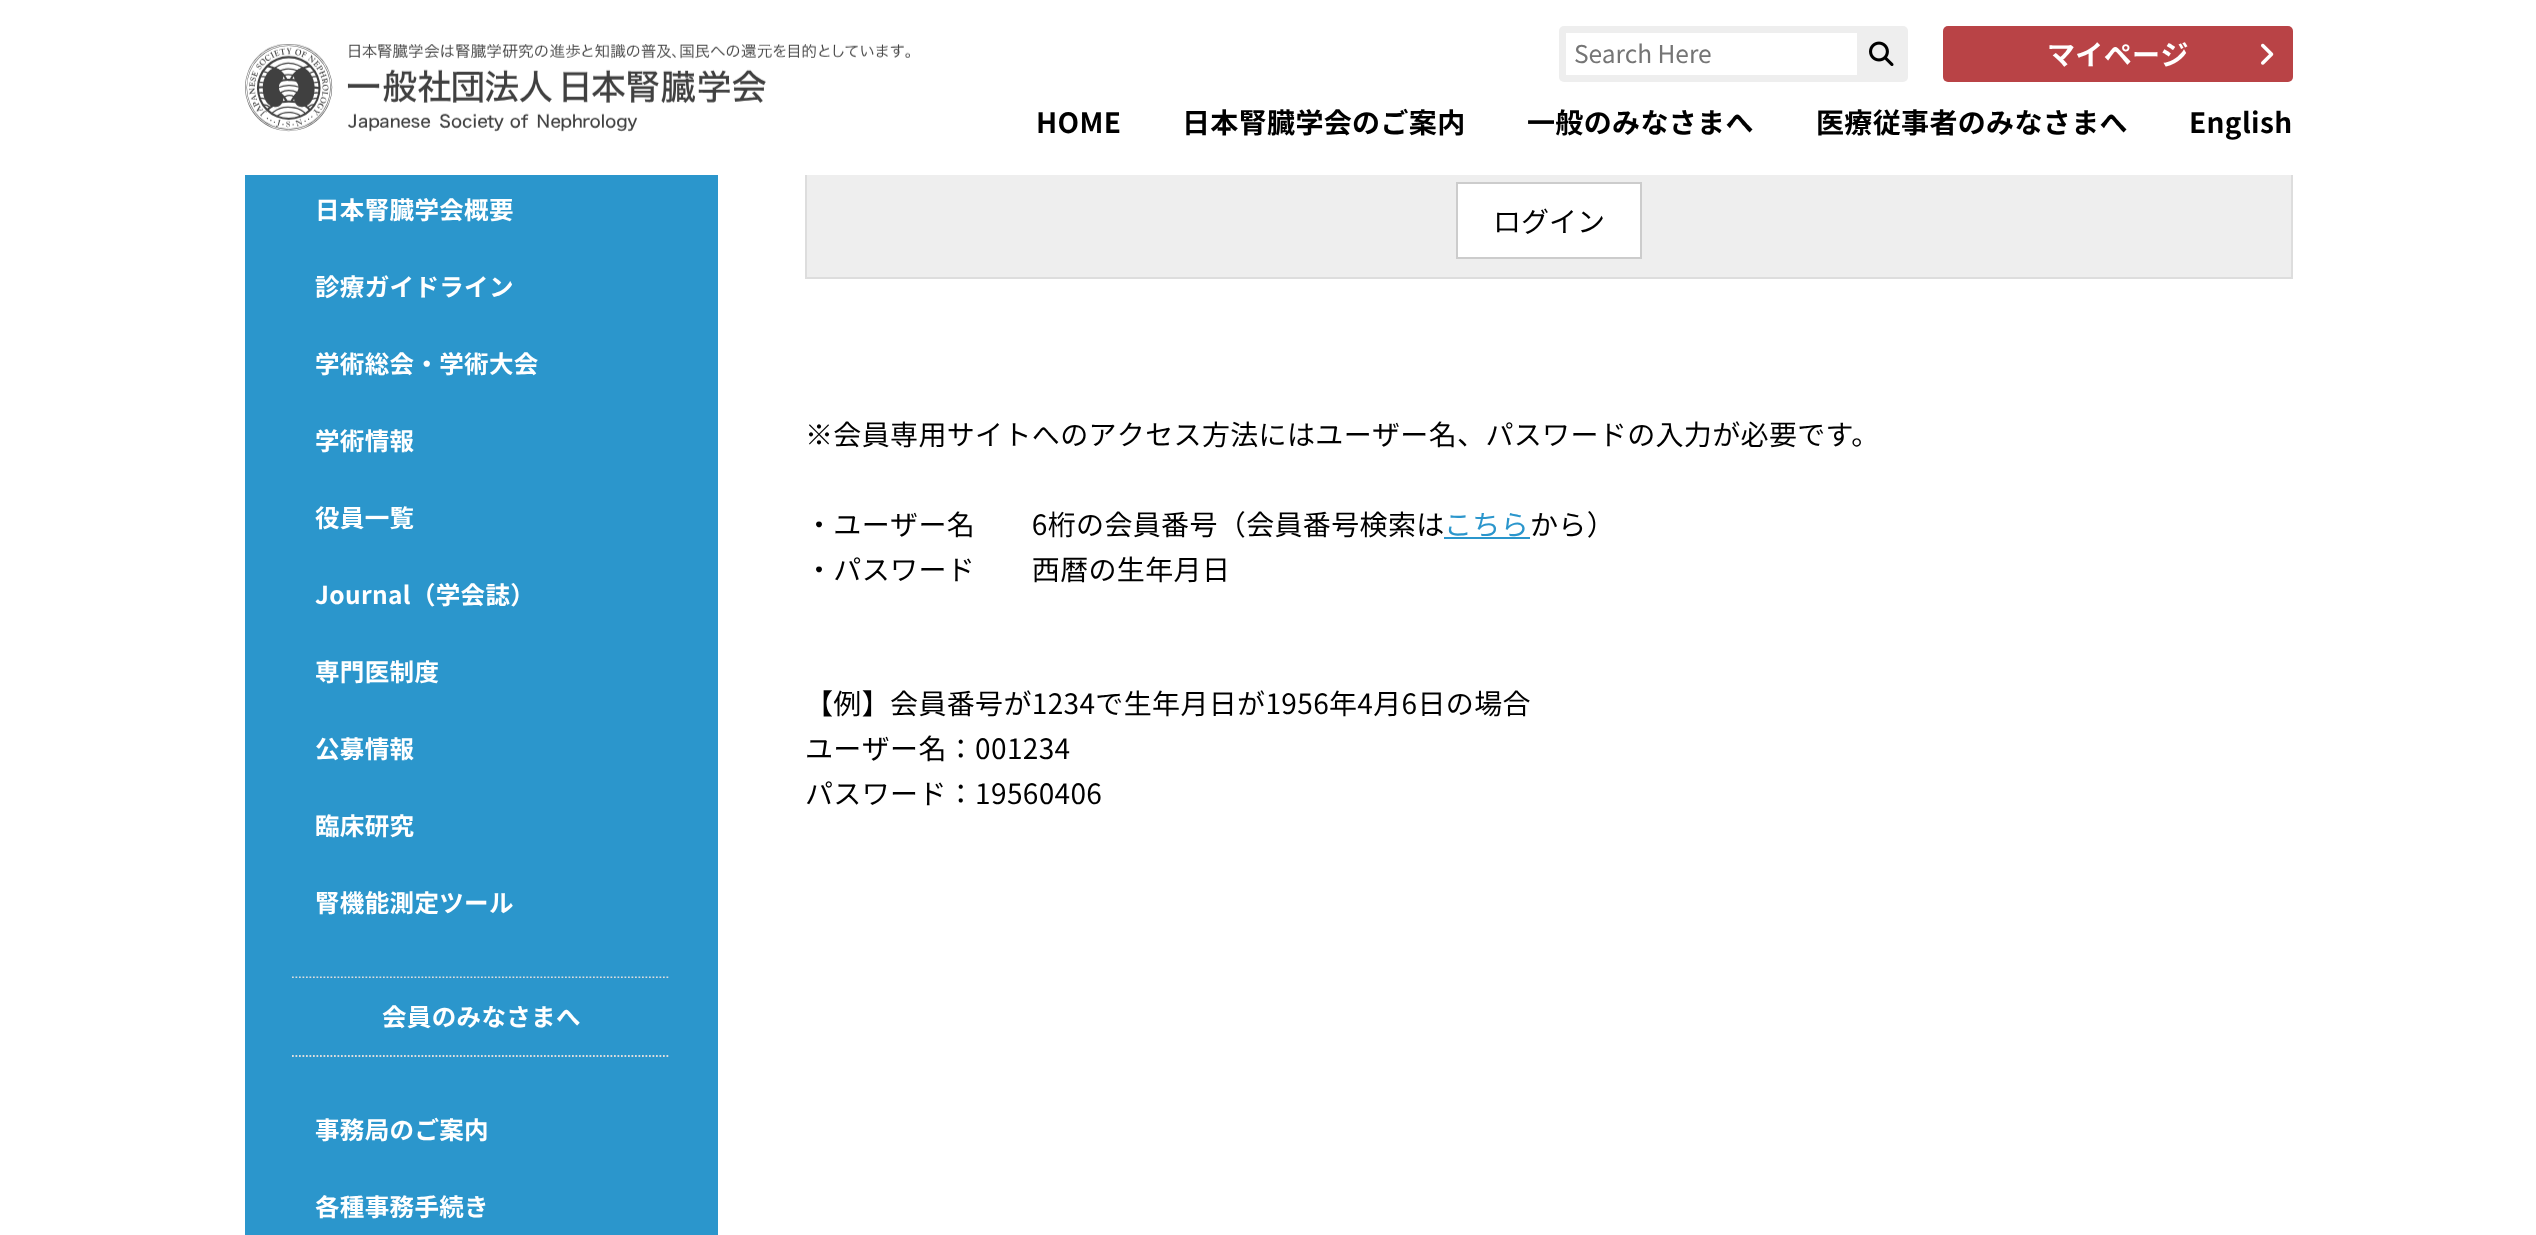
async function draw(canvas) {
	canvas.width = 2536;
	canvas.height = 1235;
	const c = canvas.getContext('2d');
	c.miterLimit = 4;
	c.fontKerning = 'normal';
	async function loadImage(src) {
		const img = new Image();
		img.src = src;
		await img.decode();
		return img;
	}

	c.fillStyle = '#fff';
	c.fillRect(0, 0, 2536, 1235);
	c.drawImage(await loadImage('img1.png'), 245, 44, 665, 88);
	c.fillStyle = '#eee';
	c.beginPath();
	c.roundRect(1559, 26, 349, 56, 5);
	c.fill();
	c.fillStyle = '#fff';
	c.fillRect(1566, 33, 291, 42);
	c.font = '24.5px Noto Sans JP';
	c.fillStyle = '#757575';
	c.fillText('Search Here', 1574, 63);
	c.drawImage(await loadImage('img2.png'), 1869, 41, 25, 25);
	c.fillStyle = '#b94346';
	c.beginPath();
	c.roundRect(1943, 26, 350, 56, 5);
	c.fill();
	c.letterSpacing = '0.35px';
	c.font = 'bold 28px Noto Sans JP';
	c.fillStyle = '#fff';
	c.fillText('マイページ', 2047, 65);
	c.drawImage(await loadImage('img3.png'), 2261, 43, 13, 22);
	c.fillStyle = '#000';
	for (const [text, x, y] of [
		['HOME', 1036, 133],
		['日本腎臓学会のご案内', 1182, 133],
		['一般のみなさまへ', 1527, 133],
		['医療従事者のみなさまへ', 1816, 133],
		['English', 2189, 133],
	]) {
		c.fillText(text, x, y);
	}
	c.fillStyle = '#2b96cc';
	c.fillRect(245, 175, 473, 1060);
	c.font = 'bold 24.5px Noto Sans JP';
	c.fillStyle = '#fff';
	for (const [text, x, y] of [
		['日本腎臓学会概要', 315, 219],
		['診療ガイドライン', 315, 296],
		['学術総会・学術大会', 315, 373],
		['学術情報', 315, 450],
		['役員一覧', 315, 527],
		['Journal（学会誌）', 315, 604],
		['専門医制度', 315, 681],
		['公募情報', 315, 758],
		['臨床研究', 315, 835],
		['腎機能測定ツール', 315, 912],
	]) {
		c.fillText(text, x, y);
	}
	c.beginPath();
	c.moveTo(292, 977.5);
	c.lineTo(670, 977.5);
	c.strokeStyle = '#ddd';
	c.lineWidth = 1.8;
	c.setLineDash([1.75, 1.75]);
	c.stroke();
	c.fillStyle = '#2b96cc';
	c.fillRect(292, 978, 377, 1);
	c.fillStyle = '#fff';
	c.fillText('会員のみなさまへ', 382, 1026);
	c.beginPath();
	c.moveTo(292, 1056);
	c.lineTo(670, 1056);
	c.stroke();
	c.fillText('事務局のご案内', 315, 1139);
	c.fillText('各種事務手続き', 315, 1216);
	for (const [x, y, w, h, color] of [
		[807, 175, 1484, 102, '#eee'],
		[805, 175, 2, 103, '#ddd'],
		[2291, 175, 2, 103, '#ddd'],
		[805, 277, 1488, 2, '#ddd'],
	]) {
		c.fillStyle = color;
		c.fillRect(x, y, w, h);
	}
	c.fillStyle = '#fff';
	c.beginPath();
	c.rect(1457, 183, 184, 75);
	c.fill();
	c.strokeStyle = '#ccc';
	c.lineWidth = 2;
	c.setLineDash([]);
	c.stroke();
	c.letterSpacing = '0px';
	c.font = '28px Noto Sans JP';
	c.fillStyle = '#000';
	c.fillText('ログイン', 1493, 232);
	c.letterSpacing = '0.35px';
	c.fillText('※会員専用サイトへのアクセス方法にはユーザー名、パスワードの入力が必要です。', 805, 445);
	c.fillText('・ユーザー名　　6桁の会員番号（会員番号検索は', 805, 535);
	c.fillStyle = '#2b96cc';
	c.fillText('こちら', 1444, 535);
	c.fillRect(1444, 537, 86, 2);
	c.fillStyle = '#000';
	for (const [text, x, y] of [
		['から）', 1530, 535],
		['・パスワード　　西暦の生年月日', 805, 580],
		['【例】会員番号が1234で生年月日が1956年4月6日の場合', 805, 714],
		['ユーザー名：001234', 805, 759],
		['パスワード：19560406', 805, 804],
	]) {
		c.fillText(text, x, y);
	}
}

draw(document.querySelector('canvas'));
